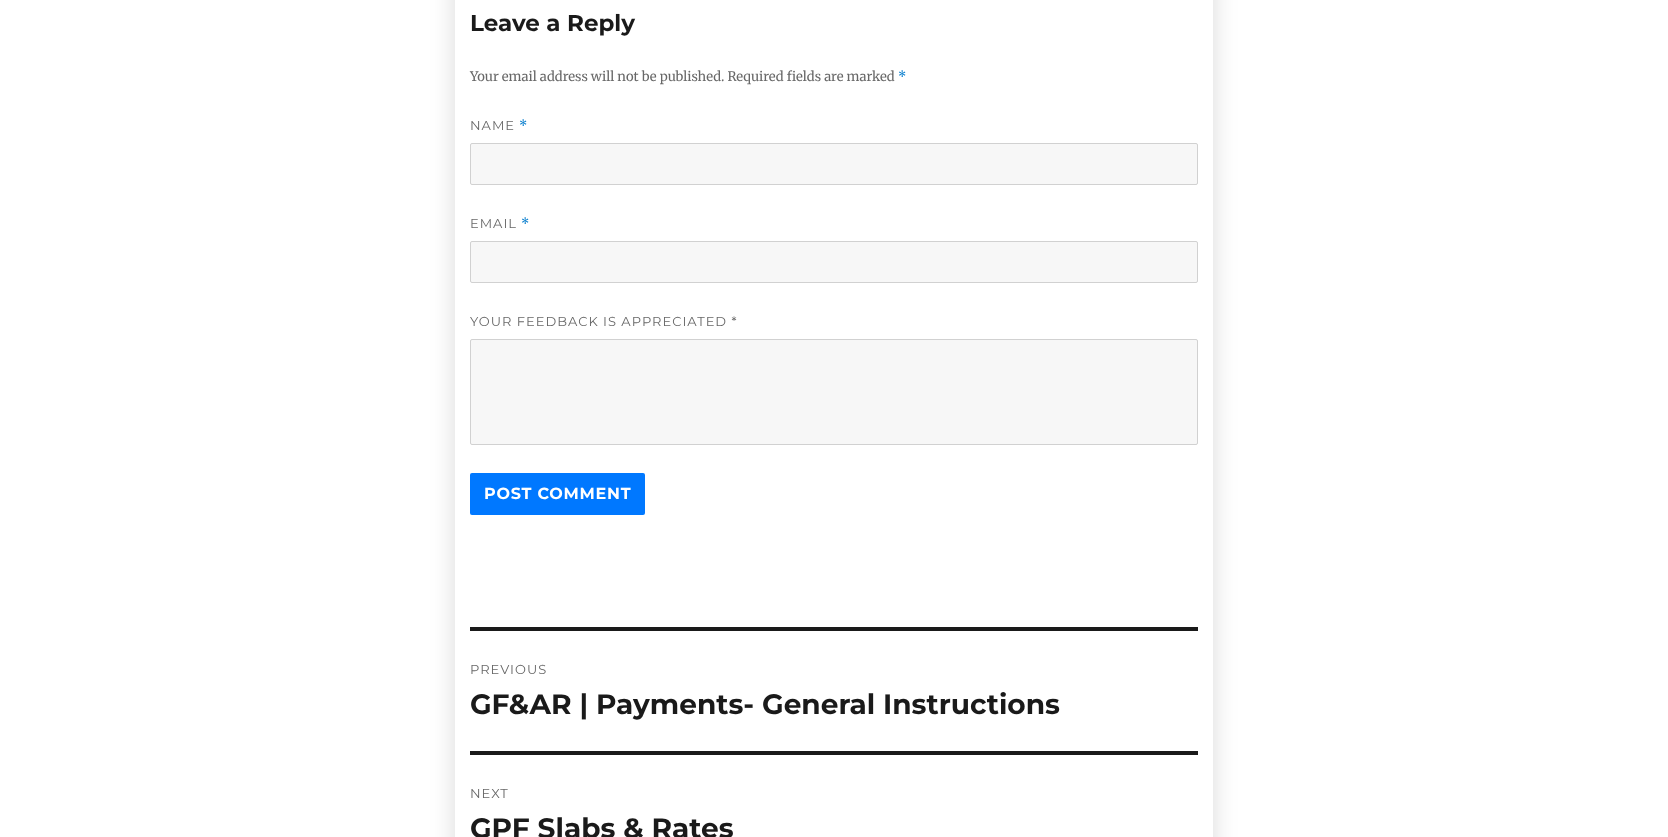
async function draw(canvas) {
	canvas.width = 1668;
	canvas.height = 837;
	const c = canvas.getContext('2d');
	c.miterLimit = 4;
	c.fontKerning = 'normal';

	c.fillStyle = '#fff';
	c.fillRect(0, 0, 1668, 837);
	c.save();
	c.beginPath();
	c.moveTo(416, 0);
	c.lineTo(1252, 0);
	c.lineTo(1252, 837);
	c.lineTo(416, 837);
	c.closePath();
	c.moveTo(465, -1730);
	c.lineTo(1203, -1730);
	c.bezierCurveTo(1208.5, -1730, 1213, -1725.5, 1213, -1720);
	c.lineTo(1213, 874);
	c.bezierCurveTo(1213, 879.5, 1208.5, 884, 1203, 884);
	c.lineTo(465, 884);
	c.bezierCurveTo(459.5, 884, 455, 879.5, 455, 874);
	c.lineTo(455, -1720);
	c.bezierCurveTo(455, -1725.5, 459.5, -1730, 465, -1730);
	c.closePath();
	c.clip('evenodd');
	c.fillStyle = '#00000026';
	c.filter = 'blur(12.5px)';
	c.beginPath();
	c.roundRect(455, -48, 758, 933, 10);
	c.fill();
	c.filter = 'none';
	c.restore();
	c.font = 'bold 23px Montserrat';
	c.fillStyle = '#1a1a1a';
	c.fillText('Leave a Reply', 470, 31);
	c.font = '13px Merriweather';
	c.fillStyle = '#686868';
	c.fillText('Your email address will not be published. Required fields are marked', 470, 81);
	c.fillStyle = '#007acc';
	c.fillText('*', 898, 81);
	c.letterSpacing = '1px';
	c.font = '13px Montserrat';
	c.fillStyle = '#686868';
	c.fillText('NAME', 470, 130);
	c.font = '13px Merriweather';
	c.fillStyle = '#007acc';
	c.fillText('*', 519, 130);
	c.fillStyle = '#f7f7f7';
	c.beginPath();
	c.roundRect(470.5, 143.5, 727, 41, 1.5);
	c.fill();
	c.strokeStyle = '#d1d1d1';
	c.stroke();
	c.font = '13px Montserrat';
	c.fillStyle = '#686868';
	c.fillText('EMAIL', 470, 228);
	c.font = '13px Merriweather';
	c.fillStyle = '#007acc';
	c.fillText('*', 521, 228);
	c.fillStyle = '#f7f7f7';
	c.beginPath();
	c.roundRect(470.5, 241.5, 727, 41, 1.5);
	c.fill();
	c.stroke();
	c.font = '13px Montserrat';
	c.fillStyle = '#686868';
	c.fillText('YOUR FEEDBACK IS APPRECIATED *', 470, 326);
	c.fillStyle = '#f7f7f7';
	c.beginPath();
	c.roundRect(470.5, 339.5, 727, 105, 1.5);
	c.fill();
	c.stroke();
	c.fillStyle = '#0078ff';
	c.beginPath();
	c.roundRect(470, 473, 175, 42, 2);
	c.fill();
	c.letterSpacing = '0.75px';
	c.font = 'bold 16px Montserrat';
	c.fillStyle = '#fff';
	c.fillText('POST COMMENT', 484, 499);
	c.fillStyle = '#1a1a1a';
	c.fillRect(470, 627, 728, 4);
	c.letterSpacing = '1px';
	c.font = '13px Montserrat';
	c.fillStyle = '#686868';
	c.fillText('PREVIOUS', 470, 674);
	c.letterSpacing = '0px';
	c.font = 'bold 28px Montserrat';
	c.fillStyle = '#1a1a1a';
	c.fillText('GF&AR | Payments- General Instructions', 470, 714);
	c.fillRect(470, 751, 728, 4);
	c.letterSpacing = '1px';
	c.font = '13px Montserrat';
	c.fillStyle = '#686868';
	c.fillText('NEXT', 470, 798);
	c.letterSpacing = '0px';
	c.font = 'bold 28px Montserrat';
	c.fillStyle = '#1a1a1a';
	c.fillText('GPF Slabs & Rates', 470, 838);
}

draw(document.querySelector('canvas'));
